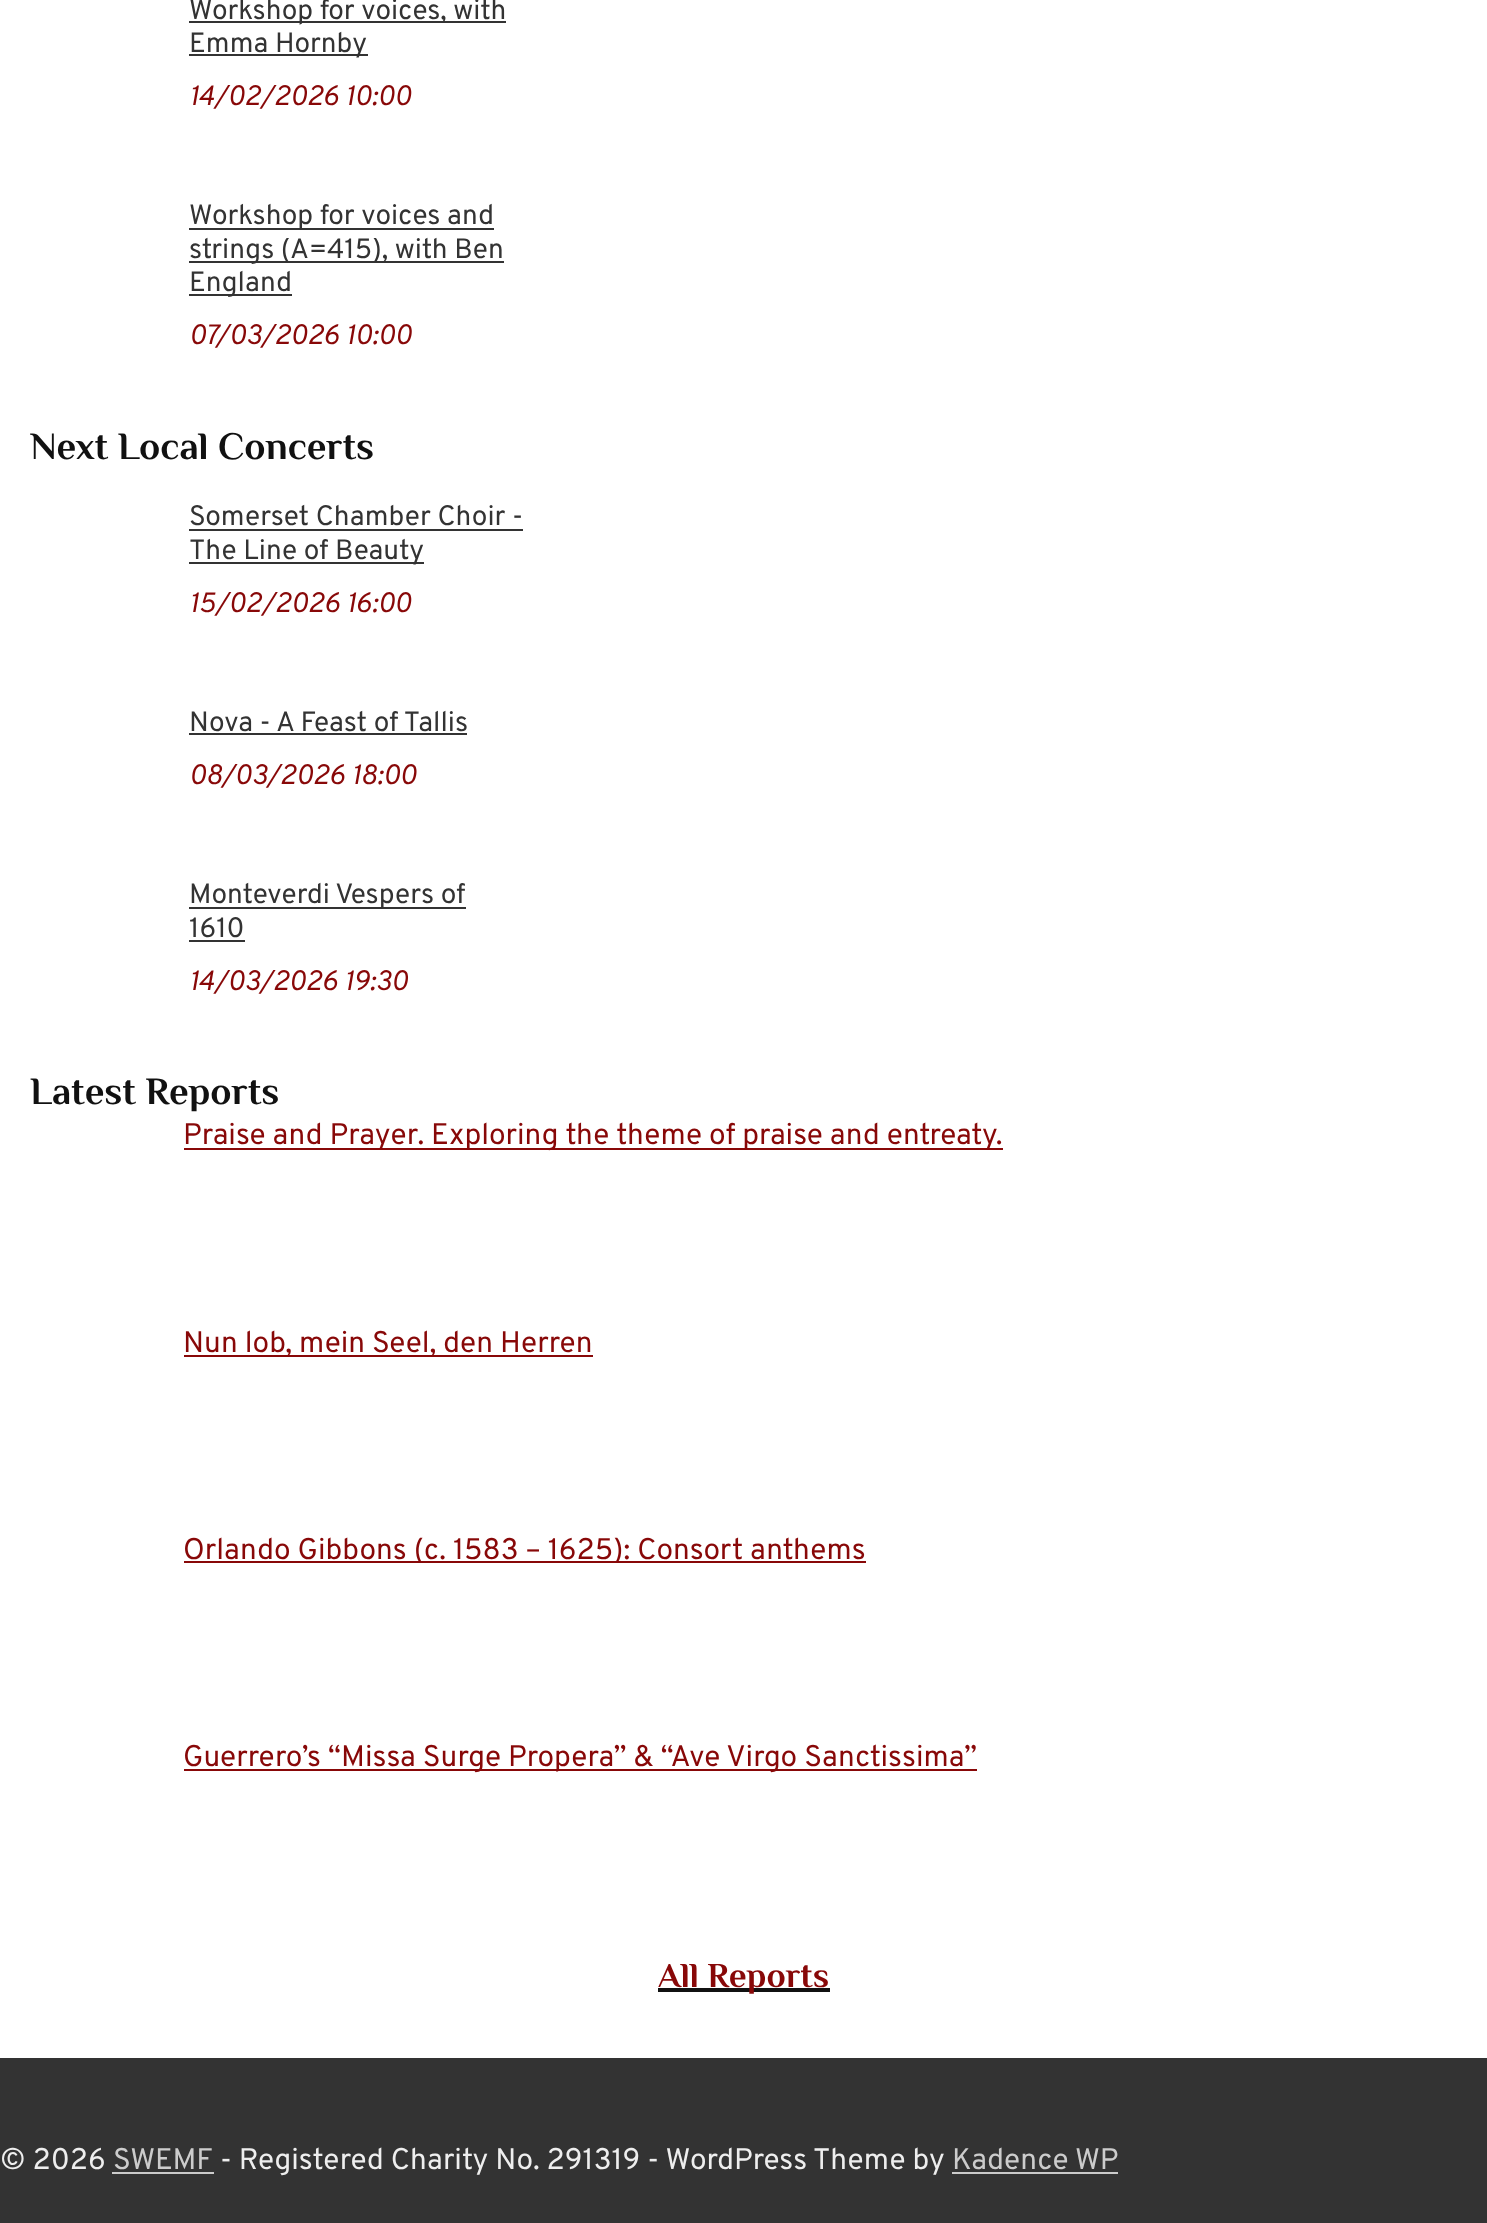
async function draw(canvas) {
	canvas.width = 1487;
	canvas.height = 2223;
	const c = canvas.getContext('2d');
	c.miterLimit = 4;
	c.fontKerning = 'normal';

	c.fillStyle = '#fff';
	c.fillRect(0, 0, 1487, 2223);
	c.fillStyle = '#333';
	c.fillRect(189, 21, 317, 2);
	c.font = '28px Overpass';
	c.fillText('Workshop for voices, with', 189, 19);
	c.fillRect(189, 54, 179, 2);
	c.fillText('Emma Hornby', 189, 52);
	c.font = 'italic 28px Overpass';
	c.fillStyle = '#880808';
	c.fillText('14/02/2026 10:00', 189, 105);
	c.fillStyle = '#333';
	c.fillRect(189, 228, 305, 2);
	c.font = '28px Overpass';
	c.fillText('Workshop for voices and', 189, 224);
	c.fillRect(189, 261, 315, 2);
	c.fillText('strings (A=415), with Ben', 189, 258);
	c.fillRect(189, 294, 103, 2);
	c.fillText('England', 189, 291);
	c.font = 'italic 28px Overpass';
	c.fillStyle = '#880808';
	c.fillText('07/03/2026 10:00', 189, 344);
	c.font = 'bold 38.5px Philosopher';
	c.fillStyle = '#111';
	c.fillText('Next Local Concerts', 30, 459);
	c.font = '28px Overpass';
	c.fillStyle = '#333';
	c.fillText('Somerset Chamber Choir -', 189, 525);
	c.fillRect(189, 529, 334, 2);
	c.fillRect(189, 562, 235, 2);
	c.fillText('The Line of Beauty', 189, 559);
	c.font = 'italic 28px Overpass';
	c.fillStyle = '#880808';
	c.fillText('15/02/2026 16:00', 189, 612);
	c.font = '28px Overpass';
	c.fillStyle = '#333';
	c.fillText('Nova - A Feast of Tallis', 189, 731);
	c.fillRect(189, 733, 278, 2);
	c.font = 'italic 28px Overpass';
	c.fillStyle = '#880808';
	c.fillText('08/03/2026 18:00', 189, 784);
	c.fillStyle = '#333';
	c.fillRect(189, 907, 277, 2);
	c.font = '28px Overpass';
	c.fillText('Monteverdi Vespers of', 189, 903);
	c.fillText('1610', 189, 937);
	c.fillRect(189, 940, 56, 2);
	c.font = 'italic 28px Overpass';
	c.fillStyle = '#880808';
	c.fillText('14/03/2026 19:30', 189, 990);
	c.font = 'bold 38.5px Philosopher';
	c.fillStyle = '#111';
	c.fillText('Latest Reports', 30, 1104);
	c.fillStyle = '#880808';
	c.fillRect(184, 1148, 819, 2);
	c.font = '29.75px Overpass';
	c.fillText('Praise and Prayer. Exploring the theme of praise and entreaty.', 183, 1144);
	c.fillRect(184, 1355, 409, 2);
	c.fillText('Nun lob, mein Seel, den Herren', 183, 1352);
	c.fillRect(184, 1561, 682, 2);
	c.fillText('Orlando Gibbons (c. 1583 – 1625): Consort anthems', 183, 1559);
	c.fillRect(184, 1769, 793, 2);
	c.fillText('Guerrero’s “Missa Surge Propera” & “Ave Virgo Sanctissima”', 183, 1766);
	c.fillStyle = '#111';
	c.fillRect(658, 1988, 172, 4);
	c.font = 'bold 35px Philosopher';
	c.fillStyle = '#880808';
	c.fillText('All Reports', 658, 1987);
	c.fillStyle = '#333';
	c.fillRect(0, 2058, 1487, 165);
	c.font = '29.75px Overpass';
	c.fillStyle = '#eee';
	c.fillText('© 2026', 0, 2169);
	c.fillStyle = '#ccc';
	c.fillText('SWEMF', 113, 2169);
	c.fillRect(112, 2172, 102, 2);
	c.fillStyle = '#eee';
	c.fillText('- Registered Charity No. 291319 - WordPress Theme by', 220, 2169);
	c.fillStyle = '#ccc';
	c.fillText('Kadence WP', 952, 2169);
	c.fillRect(952, 2172, 166, 2);
}

draw(document.querySelector('canvas'));
